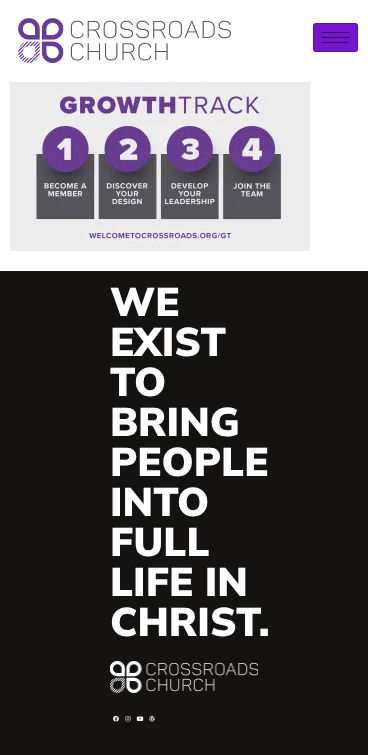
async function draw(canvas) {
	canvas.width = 368;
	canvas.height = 755;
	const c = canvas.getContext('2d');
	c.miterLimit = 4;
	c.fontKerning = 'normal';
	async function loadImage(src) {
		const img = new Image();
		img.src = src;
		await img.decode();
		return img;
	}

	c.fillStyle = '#fff';
	c.fillRect(0, 0, 368, 755);
	c.drawImage(await loadImage('img1.png'), 18, 18, 213, 45);
	c.fillStyle = '#7416cc';
	c.beginPath();
	c.roundRect(313, 23, 45, 29, 3);
	c.fill();
	c.beginPath();
	c.roundRect(313.5, 23.5, 44, 28, 2.5);
	c.strokeStyle = '#00000033';
	c.stroke();
	for (const [x, y, w, h, color] of [
		[322, 32, 27, 1, '#3a0b66'],
		[322, 37, 27, 1, '#3a0b66'],
		[322, 42, 27, 1, '#3a0b66'],
	]) {
		c.fillStyle = color;
		c.fillRect(x, y, w, h);
	}
	c.drawImage(await loadImage('img2.png'), 10, 82, 300, 169);
	c.fillStyle = '#151212';
	c.fillRect(0, 271, 368, 484);
	c.font = '900 40px Mulish';
	c.fillStyle = '#fff';
	for (const [text, x, y] of [
		['WE', 110, 316],
		['EXIST', 110, 356],
		['TO', 110, 396],
		['BRING', 110, 436],
		['PEOPLE', 110, 476],
		['INTO', 110, 516],
		['FULL', 110, 556],
		['LIFE IN', 110, 596],
		['CHRIST.', 110, 636],
	]) {
		c.fillText(text, x, y);
	}
	c.drawImage(await loadImage('img3.png'), 110, 661, 148, 32);
	c.drawImage(await loadImage('img4.png'), 113, 715, 6, 7);
	c.drawImage(await loadImage('img5.png'), 125, 716, 6, 6);
	c.drawImage(await loadImage('img6.png'), 136, 716, 8, 5);
	c.drawImage(await loadImage('img7.png'), 149, 715, 6, 7);
}

draw(document.querySelector('canvas'));
